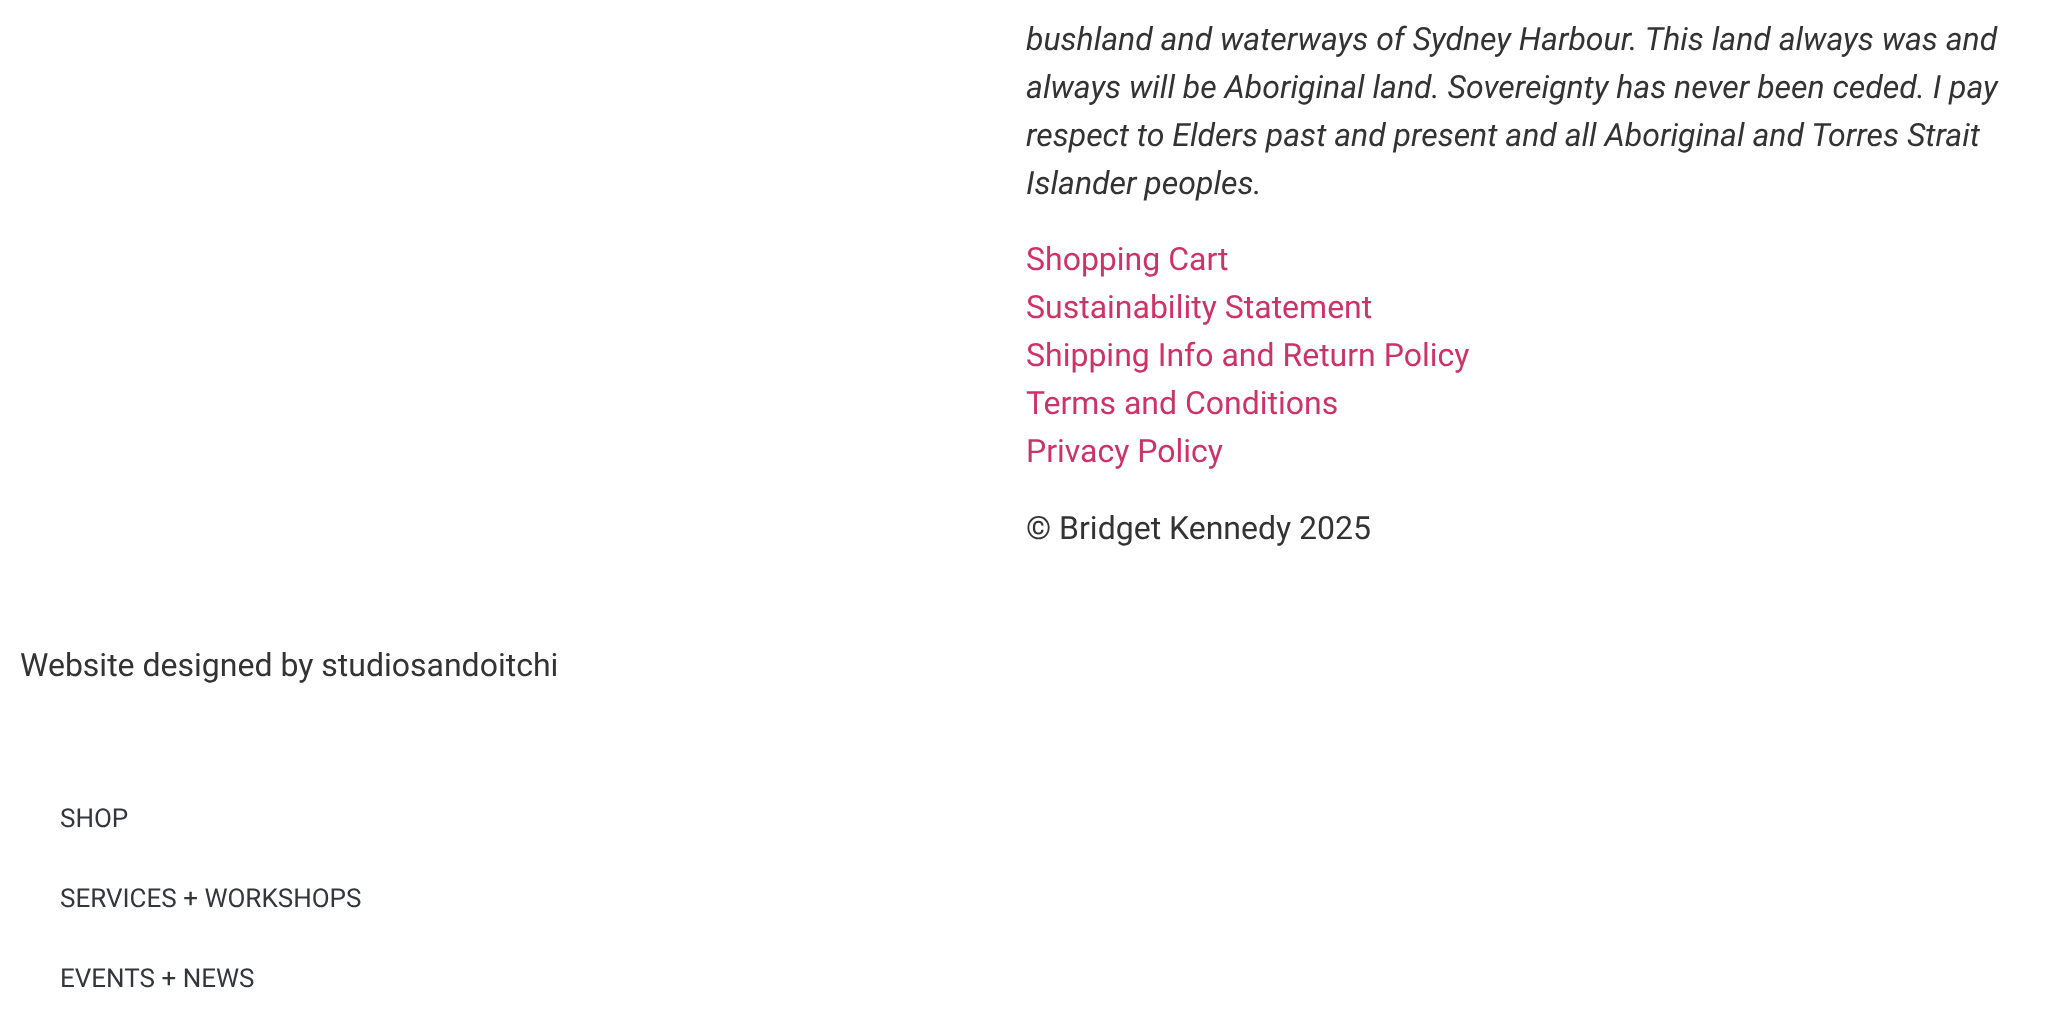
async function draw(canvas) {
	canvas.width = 2051;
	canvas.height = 1027;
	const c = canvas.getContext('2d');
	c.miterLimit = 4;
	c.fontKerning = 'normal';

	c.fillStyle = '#fff';
	c.fillRect(0, 0, 2051, 1027);
	c.font = 'italic 32px Roboto';
	c.fillStyle = '#333';
	for (const [text, x, y] of [
		['bushland and waterways of Sydney Harbour. This land always was and', 1026, 50],
		['always will be Aboriginal land. Sovereignty has never been ceded. I pay', 1026, 98],
		['respect to Elders past and present and all Aboriginal and Torres Strait', 1026, 146],
		['Islander peoples.', 1026, 194],
	]) {
		c.fillText(text, x, y);
	}
	c.font = '32px Roboto';
	c.fillStyle = '#c36';
	for (const [text, x, y] of [
		['Shopping Cart', 1026, 270],
		['Sustainability Statement', 1026, 318],
		['Shipping Info and Return Policy', 1026, 366],
		['Terms and Conditions', 1026, 414],
		['Privacy Policy', 1026, 462],
	]) {
		c.fillText(text, x, y);
	}
	c.fillStyle = '#333';
	c.fillText('© Bridget Kennedy 2025', 1026, 539);
	c.fillText('Website designed by studiosandoitchi', 20, 676);
	c.font = '26px Roboto';
	c.fillStyle = '#33373d';
	for (const [text, x, y] of [
		['SHOP', 60, 827],
		['SERVICES + WORKSHOPS', 60, 907],
		['EVENTS + NEWS', 60, 987],
	]) {
		c.fillText(text, x, y);
	}
}

draw(document.querySelector('canvas'));
